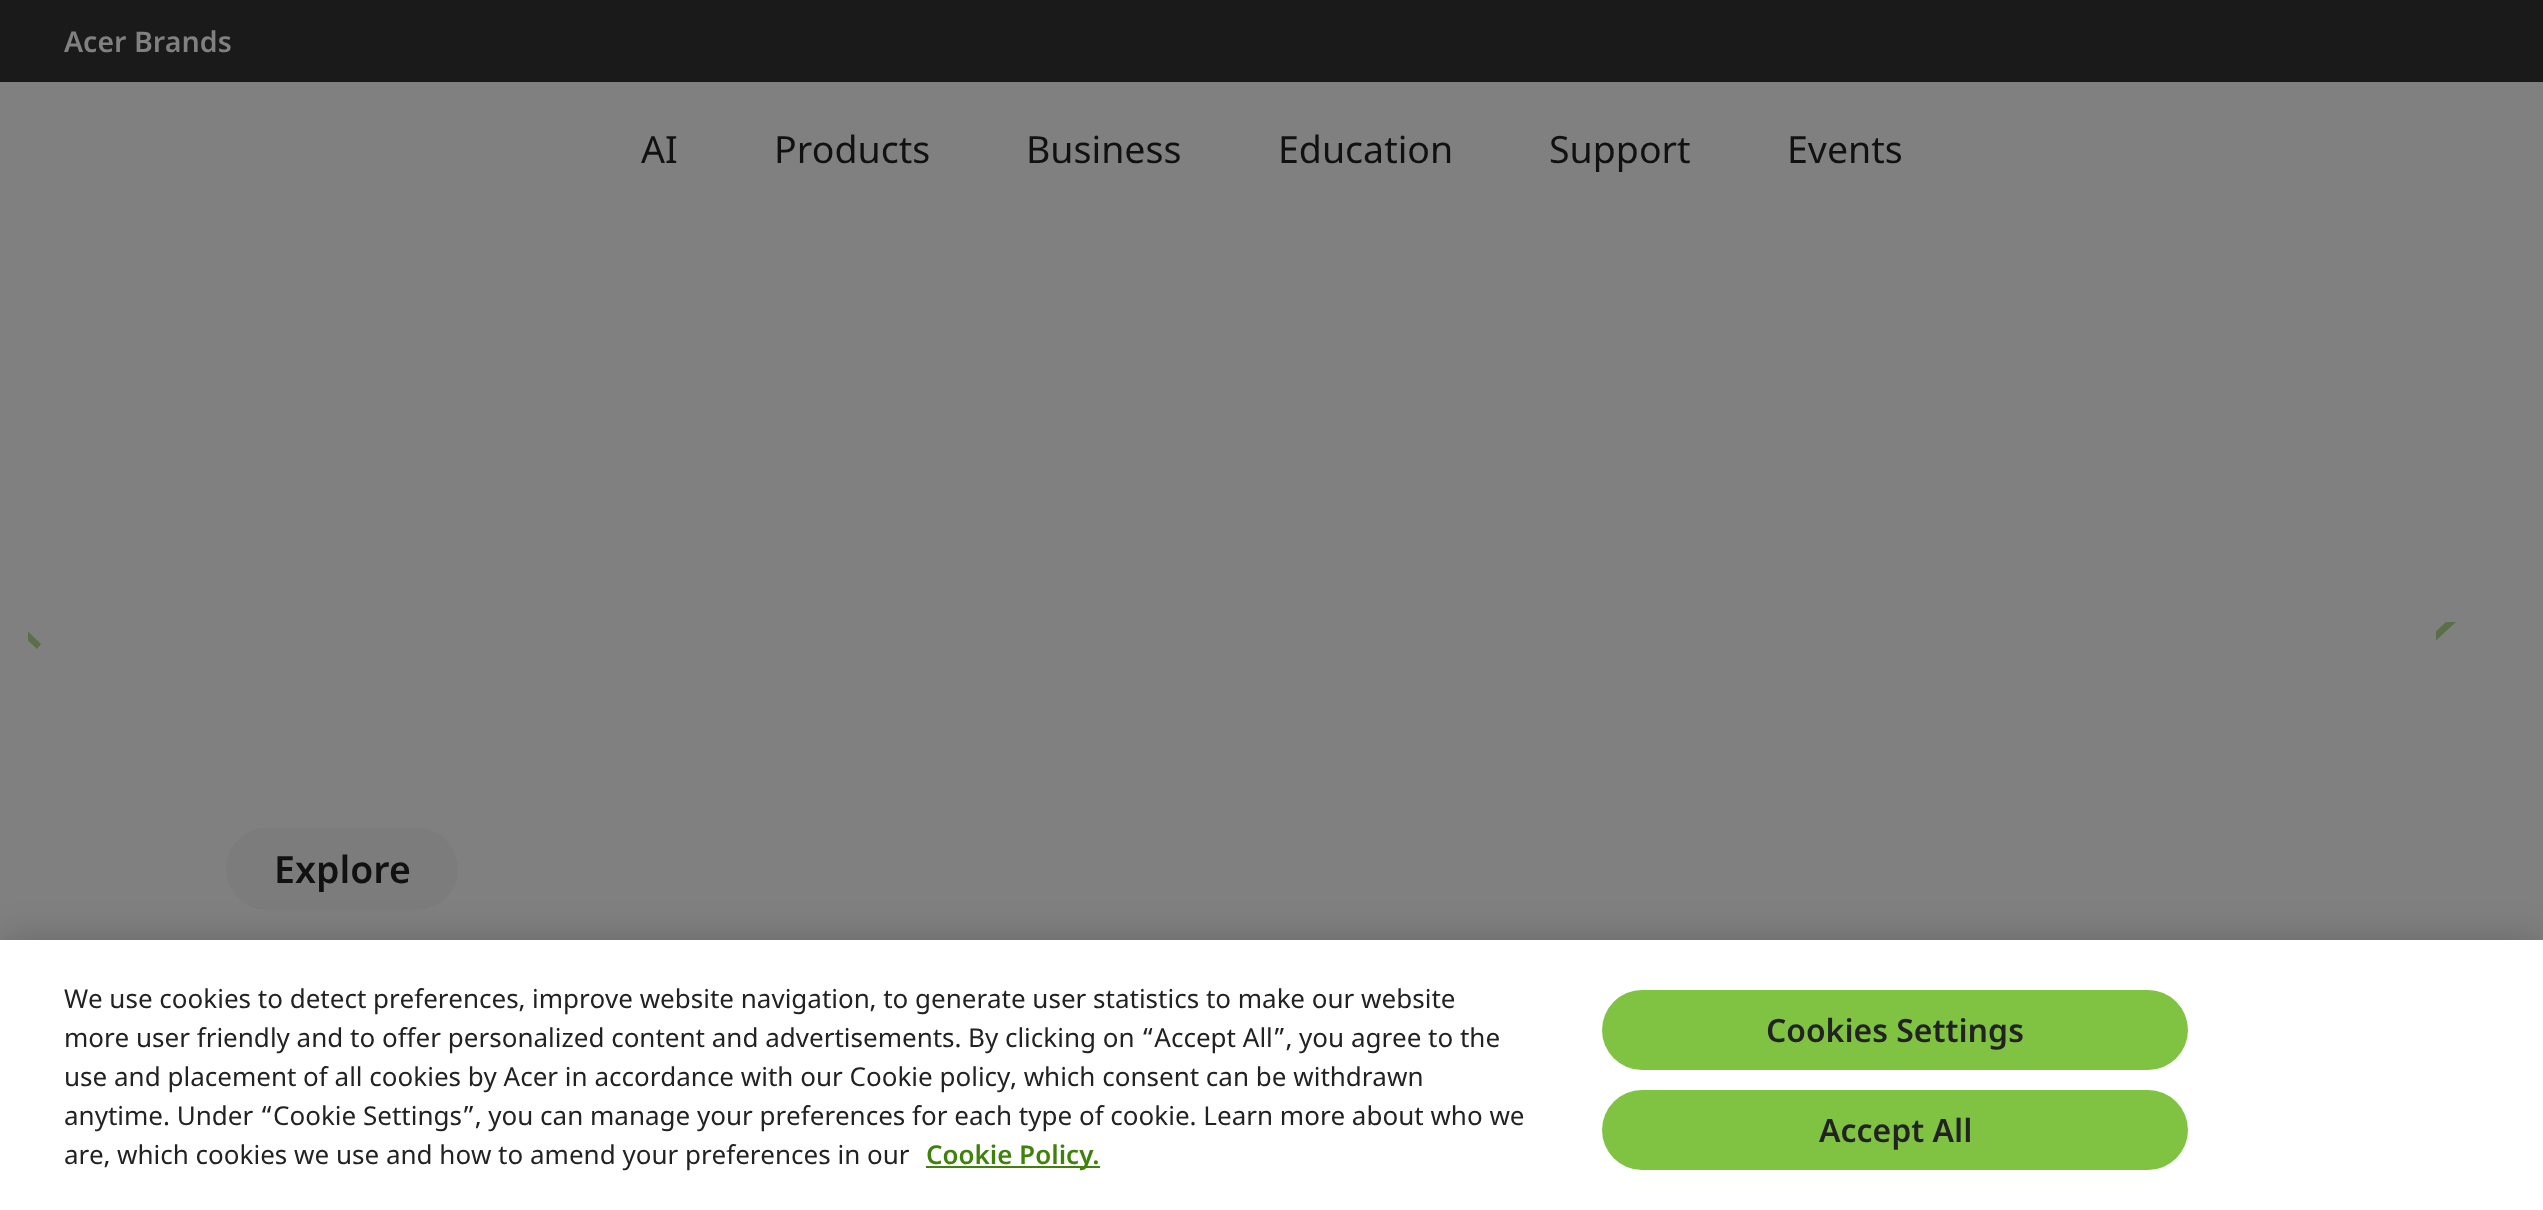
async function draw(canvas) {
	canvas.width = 2543;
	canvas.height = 1210;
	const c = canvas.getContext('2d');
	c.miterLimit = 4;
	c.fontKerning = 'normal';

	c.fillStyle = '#808080';
	c.fillRect(0, 0, 2543, 1210);
	c.fillStyle = '#1a1a1a';
	c.fillRect(0, 0, 2543, 82);
	c.font = '600 28.5px Noto Sans';
	c.fillStyle = '#808080';
	c.fillText('Acer Brands', 64, 52);
	c.font = '37.5px Noto Sans';
	c.fillStyle = '#111';
	for (const [text, x, y] of [
		['AI', 641, 163],
		['Products', 774, 163],
		['Business', 1026, 163],
		['Education', 1278, 163],
		['Support', 1549, 163],
		['Events', 1787, 163],
	]) {
		c.fillText(text, x, y);
	}
	c.save();
	c.beginPath();
	c.rect(28, 622, 80, 80);
	c.clip();
	c.fillStyle = '#5a6e47';
	c.beginPath();
	c.moveTo(37, 595);
	c.lineTo(41, 600);
	c.lineTo(18, 622);
	c.lineTo(41, 644);
	c.lineTo(37, 649);
	c.lineTo(8, 622);
	c.closePath();
	c.fill();
	c.restore();
	c.save();
	c.beginPath();
	c.rect(2436, 622, 80, 80);
	c.clip();
	c.fillStyle = '#5a6e47';
	c.beginPath();
	c.moveTo(2427, 595);
	c.lineTo(2423, 600);
	c.lineTo(2446, 622);
	c.lineTo(2423, 644);
	c.lineTo(2427, 649);
	c.lineTo(2456, 622);
	c.closePath();
	c.fill();
	c.restore();
	c.fillStyle = '#7c7c7c';
	c.beginPath();
	c.roundRect(226, 828, 232, 82, 41);
	c.fill();
	c.font = '600 37.5px Noto Sans';
	c.fillStyle = '#111';
	c.fillText('Explore', 274, 883);
	c.fillStyle = '#00000033';
	c.filter = 'blur(18px)';
	c.beginPath();
	c.rect(0, 940, 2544, 270);
	c.fill();
	c.filter = 'none';
	c.fillStyle = '#fff';
	c.fillRect(0, 940, 2543, 270);
	c.font = '26.02px Noto Sans';
	c.fillStyle = '#222';
	for (const [text, x, y] of [
		['We use cookies to detect preferences, improve website navigation, to generate user statistics to make our website', 64, 1008],
		['more user friendly and to offer personalized content and advertisements.', 64, 1047],
		['By clicking on “Accept All”, you agree to the', 968, 1047],
		['use and placement of all cookies by Acer in accordance with our Cookie policy, which consent can be withdrawn', 64, 1086],
		['anytime. Under “Cookie Settings”, you can manage your preferences for each type of cookie. Learn more about who we', 64, 1125],
		['are, which cookies we use and how to amend your preferences in our', 64, 1164],
	]) {
		c.fillText(text, x, y);
	}
	c.fillStyle = '#40810c';
	c.fillRect(926, 1166, 174, 2);
	c.font = '600 26.02px Noto Sans';
	c.fillText('Cookie Policy.', 926, 1164);
	c.fillStyle = '#80c343';
	c.beginPath();
	c.roundRect(1602, 990, 586, 80, 40);
	c.fill();
	c.font = '600 32px Noto Sans';
	c.fillStyle = '#222';
	c.fillText('Cookies Settings', 1766, 1042);
	c.fillStyle = '#80c343';
	c.beginPath();
	c.roundRect(1602, 1090, 586, 80, 40);
	c.fill();
	c.fillStyle = '#222';
	c.fillText('Accept All', 1819, 1142);
}

draw(document.querySelector('canvas'));
